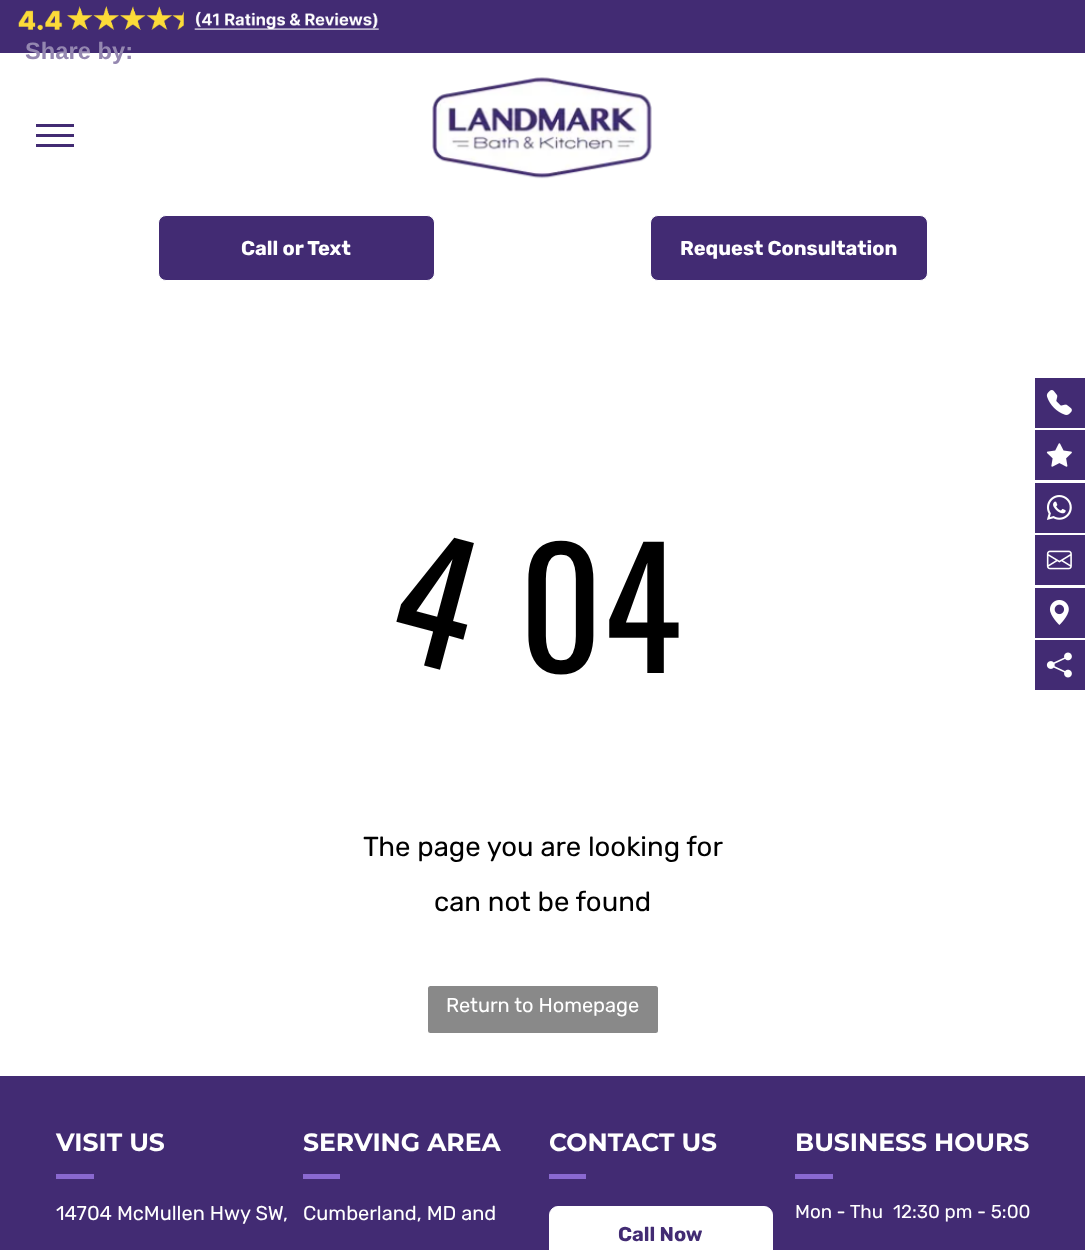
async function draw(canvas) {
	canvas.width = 1085;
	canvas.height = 1250;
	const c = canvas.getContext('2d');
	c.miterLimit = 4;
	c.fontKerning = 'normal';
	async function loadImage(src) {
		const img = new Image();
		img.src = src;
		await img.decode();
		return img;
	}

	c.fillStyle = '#fff';
	c.fillRect(0, 0, 1085, 1250);
	c.fillStyle = '#422b73';
	c.fillRect(0, 0, 1085, 53);
	c.font = 'bold 23.75px Liberation Sans';
	c.fillStyle = '#9487b0';
	c.fillText('Share by:', 25, 59);
	for (const [x, y, w, h, color] of [
		[36, 124, 38, 3, '#422b73'],
		[36, 134, 38, 3, '#422b73'],
		[36, 144, 38, 3, '#422b73'],
	]) {
		c.fillStyle = color;
		c.fillRect(x, y, w, h);
	}
	c.drawImage(await loadImage('img1.png'), 18, 6, 361, 25);
	c.drawImage(await loadImage('img2.png'), 432, 77, 220, 102);
	c.beginPath();
	c.roundRect(158.5, 215.5, 276, 65, 7.5);
	c.fill();
	c.strokeStyle = '#fff';
	c.stroke();
	c.font = 'bold 20px Rubik';
	c.fillStyle = '#fff';
	c.fillText('Call or Text', 241, 255);
	c.fillStyle = '#422b73';
	c.beginPath();
	c.roundRect(650.5, 215.5, 277, 65, 7.5);
	c.fill();
	c.stroke();
	c.fillStyle = '#fff';
	c.fillText('Request Consultation', 680, 255);
	c.font = '162px Oswald';
	c.fillStyle = '#000';
	c.save();
	c.translate(381, 654);
	c.rotate(15 * Math.PI / 180);
	c.fillText('4', 0, 0);
	c.restore();
	c.fillText('04', 519, 673);
	c.font = '27.5px Rubik';
	c.fillText('The page you are looking for', 363, 856);
	c.fillText('can not be found', 434, 911);
	c.fillStyle = '#898989';
	c.beginPath();
	c.roundRect(428, 986, 230, 47, 2.5);
	c.fill();
	c.font = '20px Rubik';
	c.fillStyle = '#fff';
	c.fillText('Return to Homepage', 446, 1012);
	c.fillStyle = '#422b73';
	c.fillRect(0, 1076, 1085, 174);
	c.font = 'bold 25px Montserrat';
	c.fillStyle = '#fff';
	c.fillText('VISIT US', 56, 1151);
	c.fillStyle = '#8968cf';
	c.fillRect(56, 1174, 38, 5);
	c.font = '20px Rubik';
	c.fillStyle = '#fff';
	c.fillText('14704 McMullen Hwy SW,', 56, 1220);
	c.font = 'bold 25px Montserrat';
	c.fillText('SERVING AREA', 303, 1151);
	c.fillStyle = '#8a69d1';
	c.fillRect(303, 1174, 37, 5);
	c.font = '20px Rubik';
	c.fillStyle = '#fff';
	c.fillText('Cumberland, MD and', 303, 1220);
	c.font = 'bold 25px Montserrat';
	c.fillText('CONTACT US', 549, 1151);
	c.fillStyle = '#8a69d1';
	c.fillRect(549, 1174, 37, 5);
	c.fillStyle = '#fff';
	c.beginPath();
	c.roundRect(549.5, 1206.5, 223, 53, 8.5);
	c.fill();
	c.stroke();
	c.font = 'bold 20px Rubik';
	c.fillStyle = '#422b73';
	c.fillText('Call Now', 618, 1241);
	c.font = 'bold 25px Montserrat';
	c.fillStyle = '#fff';
	c.fillText('BUSINESS HOURS', 795, 1151);
	c.fillStyle = '#8a69d1';
	c.fillRect(795, 1174, 38, 5);
	c.font = '18.75px Rubik';
	c.fillStyle = '#fff';
	c.fillText('Mon - Thu', 795, 1218);
	c.fillText('12:30 pm - 5:00', 893, 1218);
	c.fillStyle = '#422b73';
	c.fillRect(1035, 378, 50, 50);
	c.drawImage(await loadImage('img3.png'), 1046, 390, 26, 25);
	c.fillRect(1035, 430, 50, 50);
	c.drawImage(await loadImage('img4.png'), 1046, 443, 26, 24);
	c.fillRect(1035, 483, 50, 50);
	c.drawImage(await loadImage('img5.png'), 1046, 495, 26, 25);
	c.fillRect(1035, 535, 50, 50);
	c.drawImage(await loadImage('img6.png'), 1046, 550, 26, 20);
	c.fillRect(1035, 588, 50, 50);
	c.drawImage(await loadImage('img7.png'), 1049, 600, 20, 25);
	c.fillRect(1035, 640, 50, 50);
	c.drawImage(await loadImage('img8.png'), 1046, 652, 26, 26);
}

draw(document.querySelector('canvas'));
